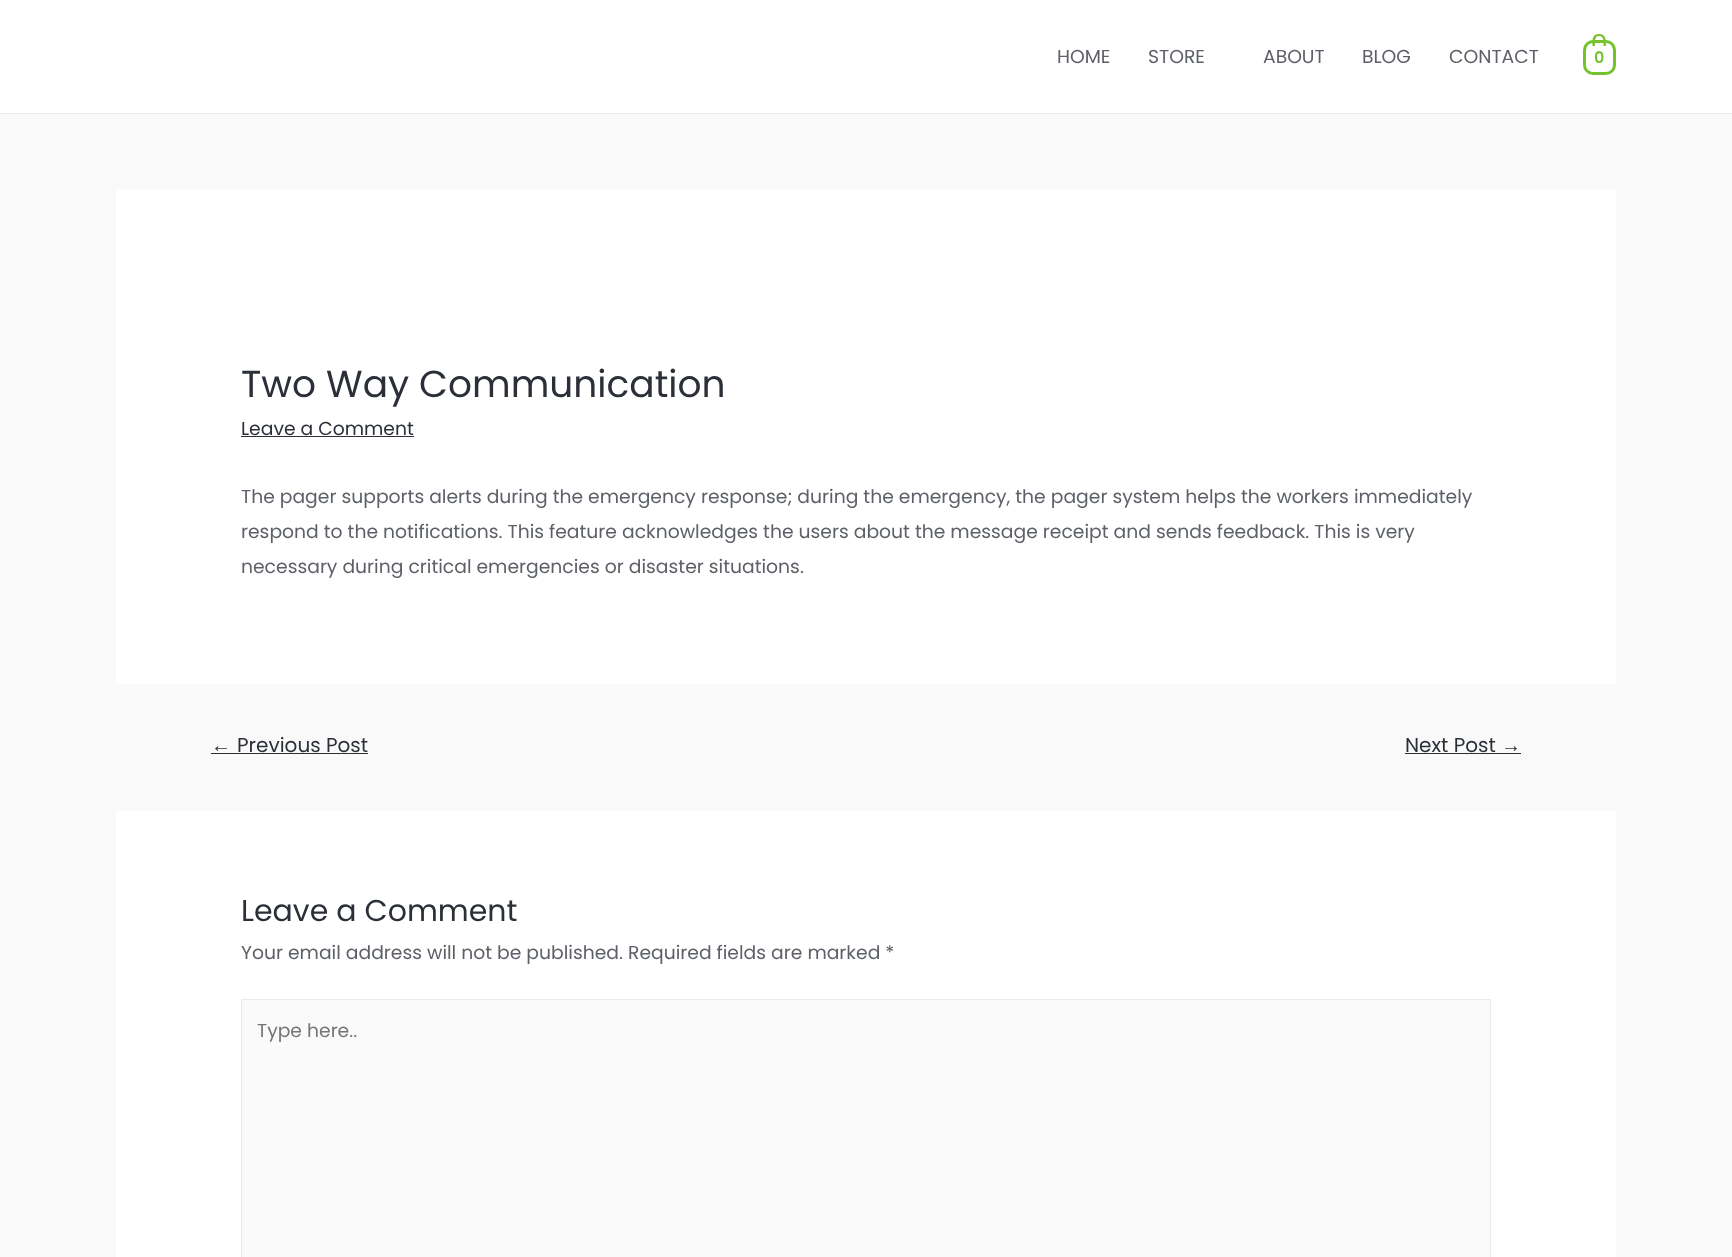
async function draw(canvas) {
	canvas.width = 1732;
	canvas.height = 1257;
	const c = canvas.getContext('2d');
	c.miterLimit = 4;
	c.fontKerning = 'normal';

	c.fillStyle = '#f9f9f9';
	c.fillRect(0, 0, 1732, 1257);
	c.fillStyle = '#fff';
	c.fillRect(0, 0, 1732, 113);
	c.fillStyle = '#eaeaea';
	c.fillRect(0, 113, 1732, 1);
	c.font = '18.75px Poppins';
	c.fillStyle = '#5d6167';
	for (const [text, x, y] of [
		['HOME', 1057, 63],
		['STORE', 1148, 63],
		['ABOUT', 1263, 63],
		['BLOG', 1362, 63],
		['CONTACT', 1449, 63],
	]) {
		c.fillText(text, x, y);
	}
	c.beginPath();
	c.roundRect(1584.5, 41.5, 30, 32, 8.5);
	c.strokeStyle = '#75c32c';
	c.lineWidth = 3;
	c.stroke();
	c.fillStyle = '#75c32c';
	c.beginPath();
	c.moveTo(1599, 34);
	c.bezierCurveTo(1606.5, 34, 1606, 41, 1606, 46);
	c.lineTo(1592.5, 46);
	c.bezierCurveTo(1592.5, 41, 1591.5, 34, 1599, 34);
	c.closePath();
	c.moveTo(1599, 36);
	c.bezierCurveTo(1604.5, 36, 1603.5, 42.5, 1603.5, 46);
	c.lineTo(1595, 46);
	c.bezierCurveTo(1595, 42.5, 1594, 36, 1599, 36);
	c.closePath();
	c.fill('evenodd');
	c.font = '600 16px Poppins';
	c.fillText('0', 1594, 63);
	c.fillStyle = '#fff';
	c.fillRect(116, 189, 1500, 495);
	c.font = '37.5px Poppins';
	c.fillStyle = '#2b2f38';
	c.fillText('Two Way Communication', 241, 397);
	c.font = '18.75px Poppins';
	c.fillText('Leave a Comment', 241, 435);
	c.fillRect(241, 436, 173, 1);
	c.fillStyle = '#5d6167';
	for (const [text, x, y] of [
		['The pager supports alerts during the emergency response; during the emergency, the pager system helps the workers immediately', 241, 503],
		['respond to the notifications. This feature acknowledges the users about the message receipt and sends feedback. This is very', 241, 538],
		['necessary during critical emergencies or disaster situations.', 241, 573],
	]) {
		c.fillText(text, x, y);
	}
	c.font = '20px Liberation Sans';
	c.fillStyle = '#2b2f38';
	c.fillText('←', 211, 752);
	c.fillRect(211, 753, 157, 1);
	c.font = '20px Poppins';
	c.fillText('Previous Post', 237, 752);
	c.fillText('Next Post', 1405, 752);
	c.fillRect(1405, 753, 116, 1);
	c.font = '20px Liberation Sans';
	c.fillText('→', 1501, 752);
	c.fillStyle = '#fff';
	c.fillRect(116, 811, 1500, 446);
	c.font = '30px Poppins';
	c.fillStyle = '#2b2f38';
	c.fillText('Leave a Comment', 241, 921);
	c.font = '18.75px Poppins';
	c.fillStyle = '#5d6167';
	c.fillText('Your email address will not be published. Required fields are marked *', 241, 959);
	c.fillStyle = '#fafafa';
	c.beginPath();
	c.rect(241.5, 999.5, 1249, 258);
	c.fill();
	c.strokeStyle = '#eaeaea';
	c.lineWidth = 1;
	c.stroke();
	c.fillStyle = '#757575';
	c.fillText('Type here..', 257, 1037);
}

draw(document.querySelector('canvas'));
